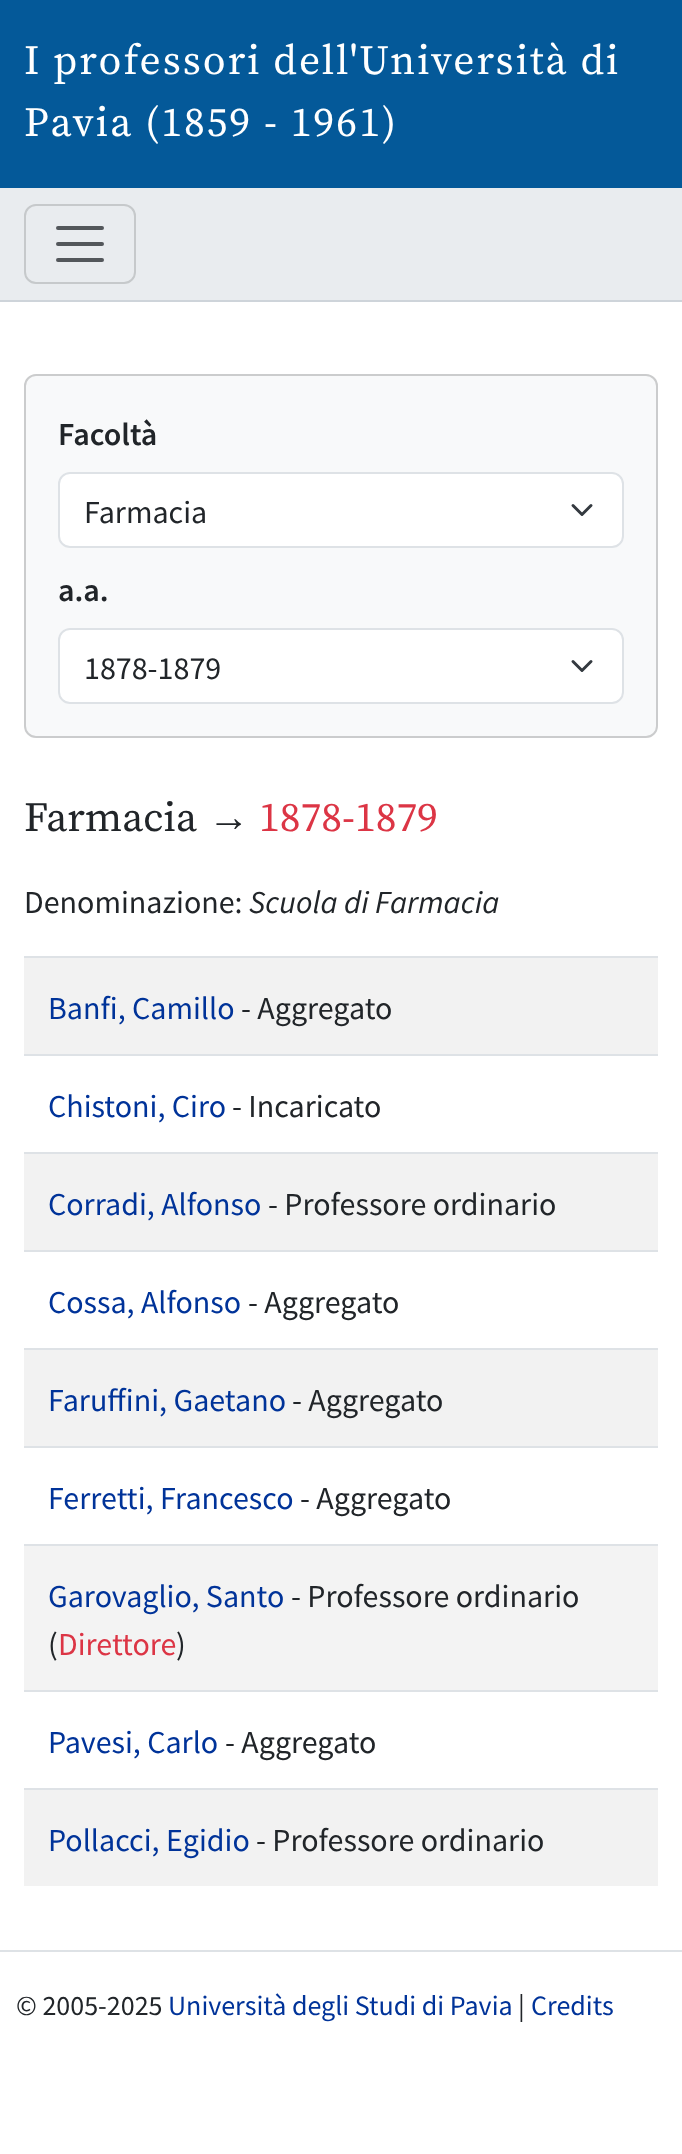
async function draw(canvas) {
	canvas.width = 682;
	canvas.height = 2154;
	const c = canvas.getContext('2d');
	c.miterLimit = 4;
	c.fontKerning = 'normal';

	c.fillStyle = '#fff';
	c.fillRect(0, 0, 682, 2154);
	c.fillStyle = '#045999';
	c.fillRect(0, 0, 682, 188);
	c.letterSpacing = '2px';
	c.font = '41.6px Source Serif Pro';
	c.fillStyle = '#fff';
	c.fillText('I professori dell\'Università di', 24, 74);
	c.fillText('Pavia (1859 - 1961)', 24, 136);
	c.fillStyle = '#e9ecef';
	c.fillRect(0, 188, 682, 112);
	c.fillStyle = '#ced4da';
	c.fillRect(0, 300, 682, 2);
	c.beginPath();
	c.roundRect(25, 205, 110, 78, 11);
	c.strokeStyle = '#c6c9cb';
	c.lineWidth = 2;
	c.stroke();
	c.beginPath();
	c.moveTo(58, 228);
	c.lineTo(102, 228);
	c.moveTo(58, 244);
	c.lineTo(102, 244);
	c.moveTo(58, 260);
	c.lineTo(102, 260);
	c.strokeStyle = '#53575b';
	c.lineWidth = 4;
	c.lineCap = 'round';
	c.stroke();
	c.fillStyle = '#dee2e6';
	c.fillRect(0, 1950, 682, 2);
	c.fillStyle = '#f8f9fa';
	c.beginPath();
	c.roundRect(24, 374, 634, 364, 12);
	c.fill();
	c.beginPath();
	c.roundRect(25, 375, 632, 362, 11);
	c.strokeStyle = '#0000002e';
	c.lineWidth = 2;
	c.stroke();
	c.letterSpacing = '0px';
	c.font = '600 32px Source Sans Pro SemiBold';
	c.fillStyle = '#212529';
	c.fillText('Facoltà', 58, 445);
	c.fillStyle = '#fff';
	c.beginPath();
	c.roundRect(58, 472, 566, 76, 12);
	c.fill();
	c.beginPath();
	c.moveTo(573, 505.5);
	c.lineTo(582, 514.5);
	c.lineTo(591, 505.5);
	c.strokeStyle = '#343a40';
	c.lineWidth = 3;
	c.lineJoin = 'round';
	c.stroke();
	c.beginPath();
	c.roundRect(59, 473, 564, 74, 11);
	c.strokeStyle = '#dee2e6';
	c.lineWidth = 2;
	c.lineJoin = 'miter';
	c.stroke();
	c.font = '32px Source Sans Pro';
	c.fillStyle = '#212529';
	c.fillText('Farmacia', 84, 523);
	c.font = '600 32px Source Sans Pro SemiBold';
	c.fillText('a.a.', 58, 601);
	c.fillStyle = '#fff';
	c.beginPath();
	c.roundRect(58, 628, 566, 76, 12);
	c.fill();
	c.beginPath();
	c.moveTo(573, 661.5);
	c.lineTo(582, 670.5);
	c.lineTo(591, 661.5);
	c.strokeStyle = '#343a40';
	c.lineWidth = 3;
	c.lineJoin = 'round';
	c.stroke();
	c.beginPath();
	c.roundRect(59, 629, 564, 74, 11);
	c.strokeStyle = '#dee2e6';
	c.lineWidth = 2;
	c.lineJoin = 'miter';
	c.stroke();
	c.font = '32px Source Sans Pro';
	c.fillStyle = '#212529';
	c.fillText('1878-1879', 84, 679);
	c.font = '41.5px Source Serif Pro';
	c.fillText('Farmacia', 24, 831);
	c.font = '41.5px Liberation Serif';
	c.fillText('→', 208, 831);
	c.font = '41.5px Source Serif Pro';
	c.fillStyle = '#dc3545';
	c.fillText('1878-1879', 259, 831);
	c.font = '32px Source Sans Pro';
	c.fillStyle = '#212529';
	c.fillText('Denominazione:', 24, 913);
	c.font = 'italic 32px Source Sans Pro';
	c.fillText('Scuola di Farmacia', 249, 913);
	c.fillStyle = '#f2f2f2';
	c.fillRect(24, 958, 634, 96);
	c.fillStyle = '#dee2e6';
	c.fillRect(24, 956, 634, 2);
	c.font = '32px Source Sans Pro';
	c.fillStyle = '#039';
	c.fillText('Banfi, Camillo', 48, 1019);
	c.fillStyle = '#212529';
	c.fillText('- Aggregato', 241, 1019);
	c.fillStyle = '#dee2e6';
	c.fillRect(24, 1054, 634, 2);
	c.fillStyle = '#039';
	c.fillText('Chistoni, Ciro', 48, 1117);
	c.fillStyle = '#212529';
	c.fillText('- Incaricato', 232, 1117);
	c.fillStyle = '#f2f2f2';
	c.fillRect(24, 1154, 634, 96);
	c.fillStyle = '#dee2e6';
	c.fillRect(24, 1152, 634, 2);
	c.fillStyle = '#039';
	c.fillText('Corradi, Alfonso', 48, 1215);
	c.fillStyle = '#212529';
	c.fillText('- Professore ordinario', 268, 1215);
	c.fillStyle = '#dee2e6';
	c.fillRect(24, 1250, 634, 2);
	c.fillStyle = '#039';
	c.fillText('Cossa, Alfonso', 48, 1313);
	c.fillStyle = '#212529';
	c.fillText('- Aggregato', 248, 1313);
	c.fillStyle = '#f2f2f2';
	c.fillRect(24, 1350, 634, 96);
	c.fillStyle = '#dee2e6';
	c.fillRect(24, 1348, 634, 2);
	c.fillStyle = '#039';
	c.fillText('Faruffini, Gaetano', 48, 1411);
	c.fillStyle = '#212529';
	c.fillText('- Aggregato', 292, 1411);
	c.fillStyle = '#dee2e6';
	c.fillRect(24, 1446, 634, 2);
	c.fillStyle = '#039';
	c.fillText('Ferretti, Francesco', 48, 1509);
	c.fillStyle = '#212529';
	c.fillText('- Aggregato', 300, 1509);
	c.fillStyle = '#f3f3f3';
	c.fillRect(24, 1546, 634, 144);
	c.fillStyle = '#dee2e6';
	c.fillRect(24, 1544, 634, 2);
	c.fillStyle = '#039';
	c.fillText('Garovaglio, Santo', 48, 1607);
	c.fillStyle = '#212529';
	c.fillText('- Professore ordinario', 291, 1607);
	c.fillText('(', 48, 1655);
	c.fillStyle = '#dc3545';
	c.fillText('Direttore', 58, 1655);
	c.fillStyle = '#212529';
	c.fillText(')', 176, 1655);
	c.fillStyle = '#dee2e6';
	c.fillRect(24, 1690, 634, 2);
	c.fillStyle = '#039';
	c.fillText('Pavesi, Carlo', 48, 1753);
	c.fillStyle = '#212529';
	c.fillText('- Aggregato', 225, 1753);
	c.fillStyle = '#f2f2f2';
	c.fillRect(24, 1790, 634, 96);
	c.fillStyle = '#dee2e6';
	c.fillRect(24, 1788, 634, 2);
	c.fillStyle = '#039';
	c.fillText('Pollacci, Egidio', 48, 1851);
	c.fillStyle = '#212529';
	c.fillText('- Professore ordinario', 256, 1851);
	c.font = '28px Source Sans Pro';
	c.fillText('© 2005-2025', 16, 2015);
	c.fillStyle = '#039';
	c.fillText('Università degli Studi di Pavia', 168, 2015);
	c.fillStyle = '#212529';
	c.fillText('|', 518, 2015);
	c.fillStyle = '#039';
	c.fillText('Credits', 531, 2015);
}

draw(document.querySelector('canvas'));
